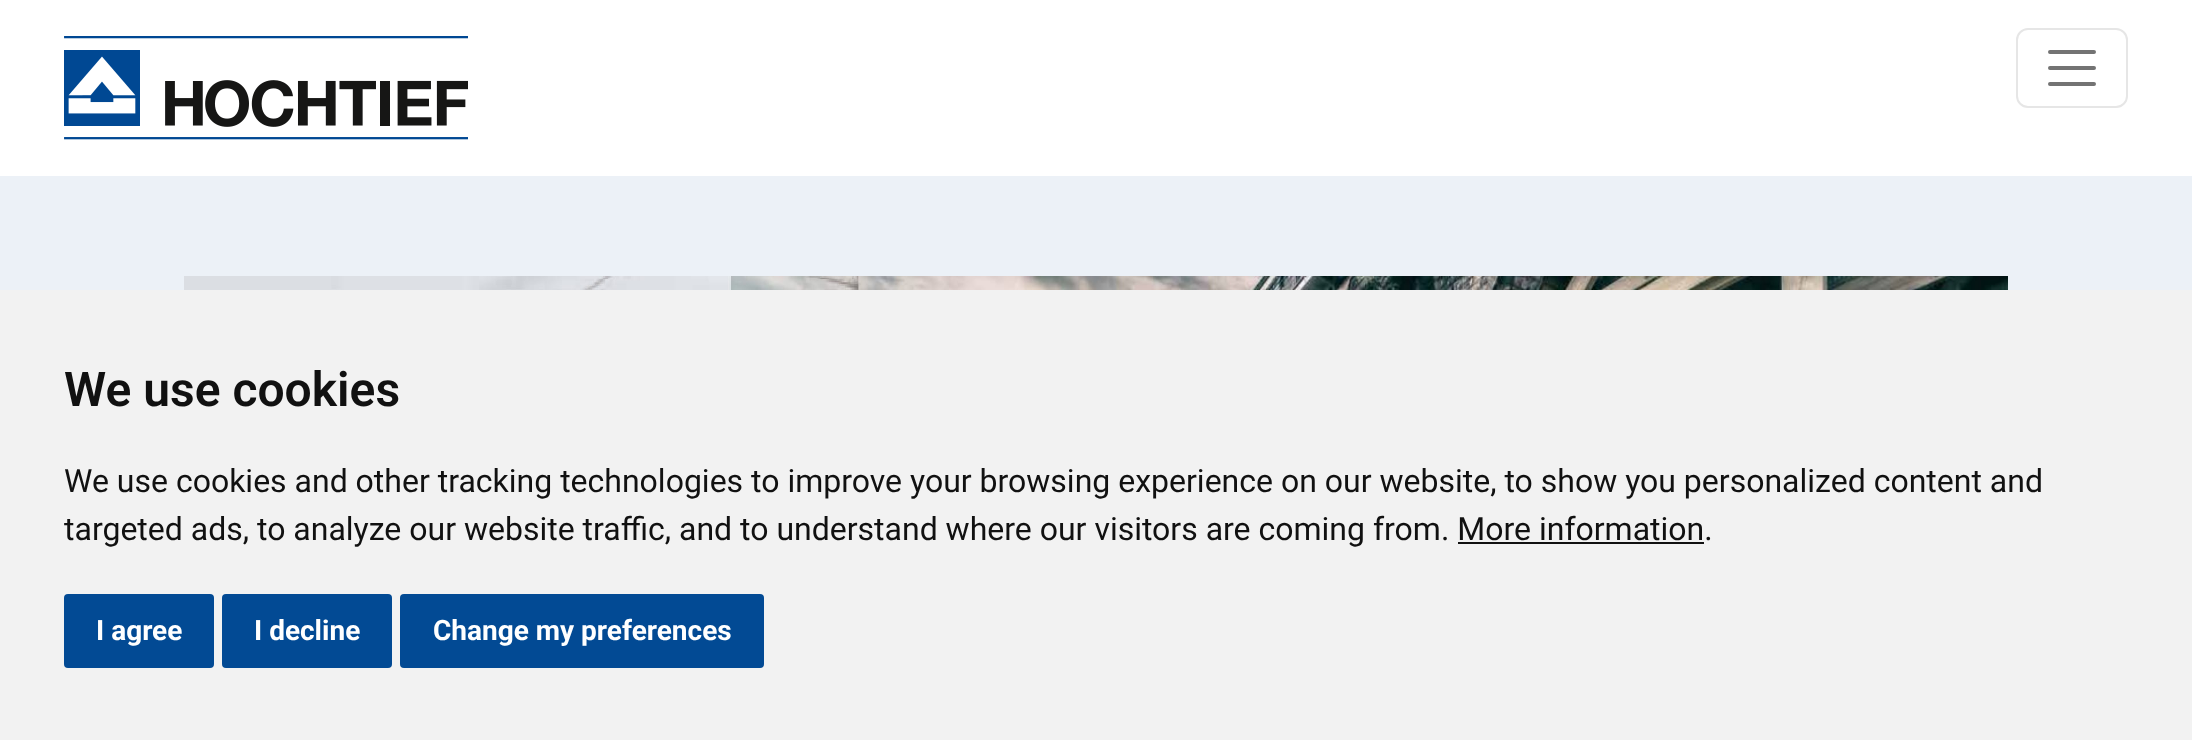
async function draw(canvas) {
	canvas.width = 2192;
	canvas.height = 740;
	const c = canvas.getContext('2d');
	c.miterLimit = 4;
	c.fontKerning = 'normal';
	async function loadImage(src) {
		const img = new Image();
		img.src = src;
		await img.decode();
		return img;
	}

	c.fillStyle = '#fff';
	c.fillRect(0, 0, 2192, 740);
	c.drawImage(await loadImage('img1.png'), 64, 36, 404, 104);
	c.beginPath();
	c.roundRect(2017, 29, 110, 78, 11);
	c.strokeStyle = '#e6e6e6';
	c.lineWidth = 2;
	c.stroke();
	c.beginPath();
	c.moveTo(2050, 52);
	c.lineTo(2094, 52);
	c.moveTo(2050, 68);
	c.lineTo(2094, 68);
	c.moveTo(2050, 84);
	c.lineTo(2094, 84);
	c.strokeStyle = '#737373';
	c.lineWidth = 4;
	c.lineCap = 'round';
	c.stroke();
	c.fillStyle = '#ecf1f7';
	c.fillRect(0, 176, 2192, 114);
	c.drawImage(await loadImage('img2.png'), 184, 276, 1824, 14);
	c.fillStyle = '#f2f2f2';
	c.fillRect(0, 290, 2192, 450);
	c.font = '600 48px Roboto';
	c.fillStyle = '#111';
	c.fillText('We use cookies', 64, 406);
	c.font = '32px Roboto';
	c.fillText('We use cookies and other tracking technologies to improve your browsing experience on our website, to show you personalized content and', 64, 492);
	c.fillText('targeted ads, to analyze our website traffic, and to understand where our visitors are coming from. More information.', 64, 540);
	c.fillRect(1458, 542, 246, 2);
	c.fillStyle = '#024a94';
	c.beginPath();
	c.roundRect(64, 594, 150, 74, 4);
	c.fill();
	c.font = 'bold 28px Roboto';
	c.fillStyle = '#fff';
	c.fillText('I agree', 96, 640);
	c.fillStyle = '#024a94';
	c.beginPath();
	c.roundRect(222, 594, 170, 74, 4);
	c.fill();
	c.fillStyle = '#fff';
	c.fillText('I decline', 254, 640);
	c.fillStyle = '#024a94';
	c.beginPath();
	c.roundRect(400, 594, 364, 74, 4);
	c.fill();
	c.fillStyle = '#fff';
	c.fillText('Change my preferences', 433, 640);
}

draw(document.querySelector('canvas'));
